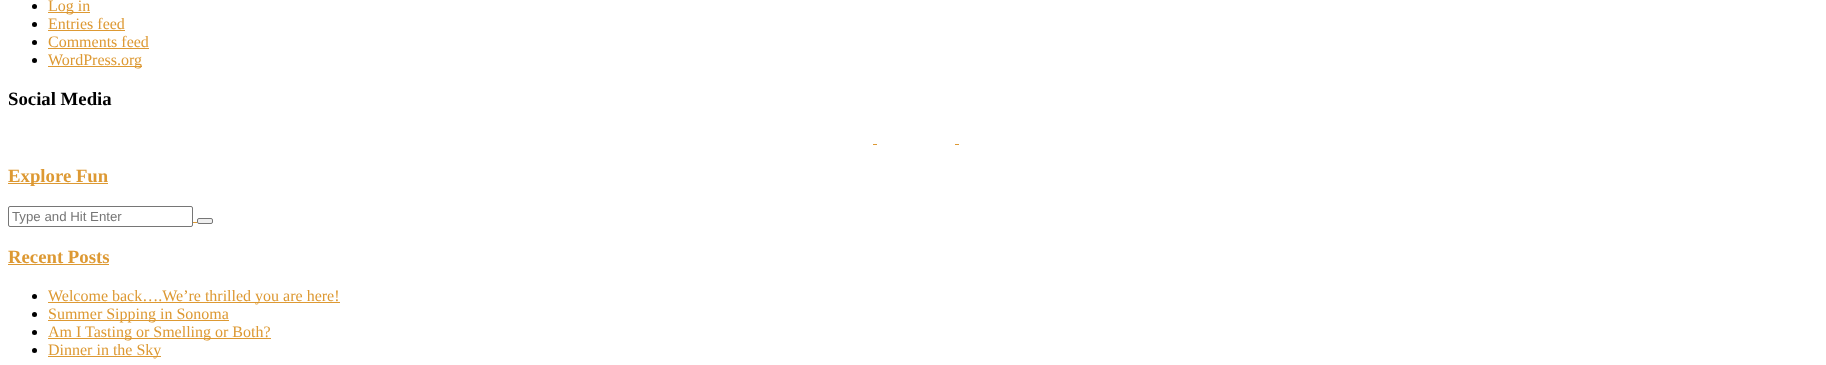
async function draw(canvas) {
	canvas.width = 1826;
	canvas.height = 365;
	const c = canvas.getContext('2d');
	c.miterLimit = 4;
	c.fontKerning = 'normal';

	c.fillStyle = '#fff';
	c.fillRect(0, 0, 1826, 365);
	c.fillStyle = '#000';
	c.beginPath();
	c.arc(34.5, 6.5, 2.5, 0, 2 * Math.PI);
	c.fill();
	c.fillStyle = '#d93';
	c.fillRect(48, 12, 42, 1);
	c.font = '16px Liberation Serif';
	c.fillText('Log in', 48, 11);
	c.fillStyle = '#000';
	c.beginPath();
	c.arc(34.5, 24.5, 2.5, 0, 2 * Math.PI);
	c.fill();
	c.fillStyle = '#d93';
	c.fillText('Entries feed', 48, 29);
	c.fillRect(48, 30, 77, 1);
	c.fillStyle = '#000';
	c.beginPath();
	c.arc(34.5, 42.5, 2.5, 0, 2 * Math.PI);
	c.fill();
	c.fillStyle = '#d93';
	c.fillText('Comments feed', 48, 47);
	c.fillRect(48, 48, 101, 1);
	c.fillStyle = '#000';
	c.beginPath();
	c.arc(34.5, 60.5, 2.5, 0, 2 * Math.PI);
	c.fill();
	c.fillStyle = '#d93';
	c.fillRect(48, 66, 94, 1);
	c.fillText('WordPress.org', 48, 65);
	c.font = 'bold 18.75px Liberation Serif';
	c.fillStyle = '#000';
	c.fillText('Social Media', 8, 105);
	for (const [x, y, w, h, color] of [
		[873, 144, 4, 1, '#d93'],
		[955, 144, 4, 1, '#d93'],
		[8, 183, 100, 1, '#d93'],
	]) {
		c.fillStyle = color;
		c.fillRect(x, y, w, h);
	}
	c.fillText('Explore Fun', 8, 182);
	c.beginPath();
	c.roundRect(8.5, 206.5, 184, 20, 1.5);
	c.strokeStyle = '#767676';
	c.stroke();
	c.font = '13.25px Liberation Sans';
	c.fillStyle = '#757575';
	c.fillText('Type and Hit Enter', 12, 221);
	c.fillStyle = '#d93';
	c.fillRect(193, 222, 4, 1);
	c.fillStyle = '#efefef';
	c.beginPath();
	c.roundRect(197.5, 218.5, 15, 5, 1.5);
	c.fill();
	c.stroke();
	c.font = 'bold 18.75px Liberation Serif';
	c.fillStyle = '#d93';
	c.fillText('Recent Posts', 8, 263);
	c.fillRect(8, 264, 101, 1);
	c.fillStyle = '#000';
	c.beginPath();
	c.arc(34.5, 296.5, 2.5, 0, 2 * Math.PI);
	c.fill();
	c.fillStyle = '#d93';
	c.fillRect(48, 302, 292, 1);
	c.font = '16px Liberation Serif';
	c.fillText('Welcome back….We’re thrilled you are here!', 48, 301);
	c.fillStyle = '#000';
	c.beginPath();
	c.arc(34.5, 314.5, 2.5, 0, 2 * Math.PI);
	c.fill();
	c.fillStyle = '#d93';
	c.fillRect(48, 320, 181, 1);
	c.fillText('Summer Sipping in Sonoma', 48, 319);
	c.fillStyle = '#000';
	c.beginPath();
	c.arc(34.5, 332.5, 2.5, 0, 2 * Math.PI);
	c.fill();
	c.fillStyle = '#d93';
	c.fillRect(48, 338, 223, 1);
	c.fillText('Am I Tasting or Smelling or Both?', 48, 337);
	c.fillStyle = '#000';
	c.beginPath();
	c.arc(34.5, 350.5, 2.5, 0, 2 * Math.PI);
	c.fill();
	c.fillStyle = '#d93';
	c.fillRect(48, 356, 113, 1);
	c.fillText('Dinner in the Sky', 48, 355);
}

draw(document.querySelector('canvas'));
